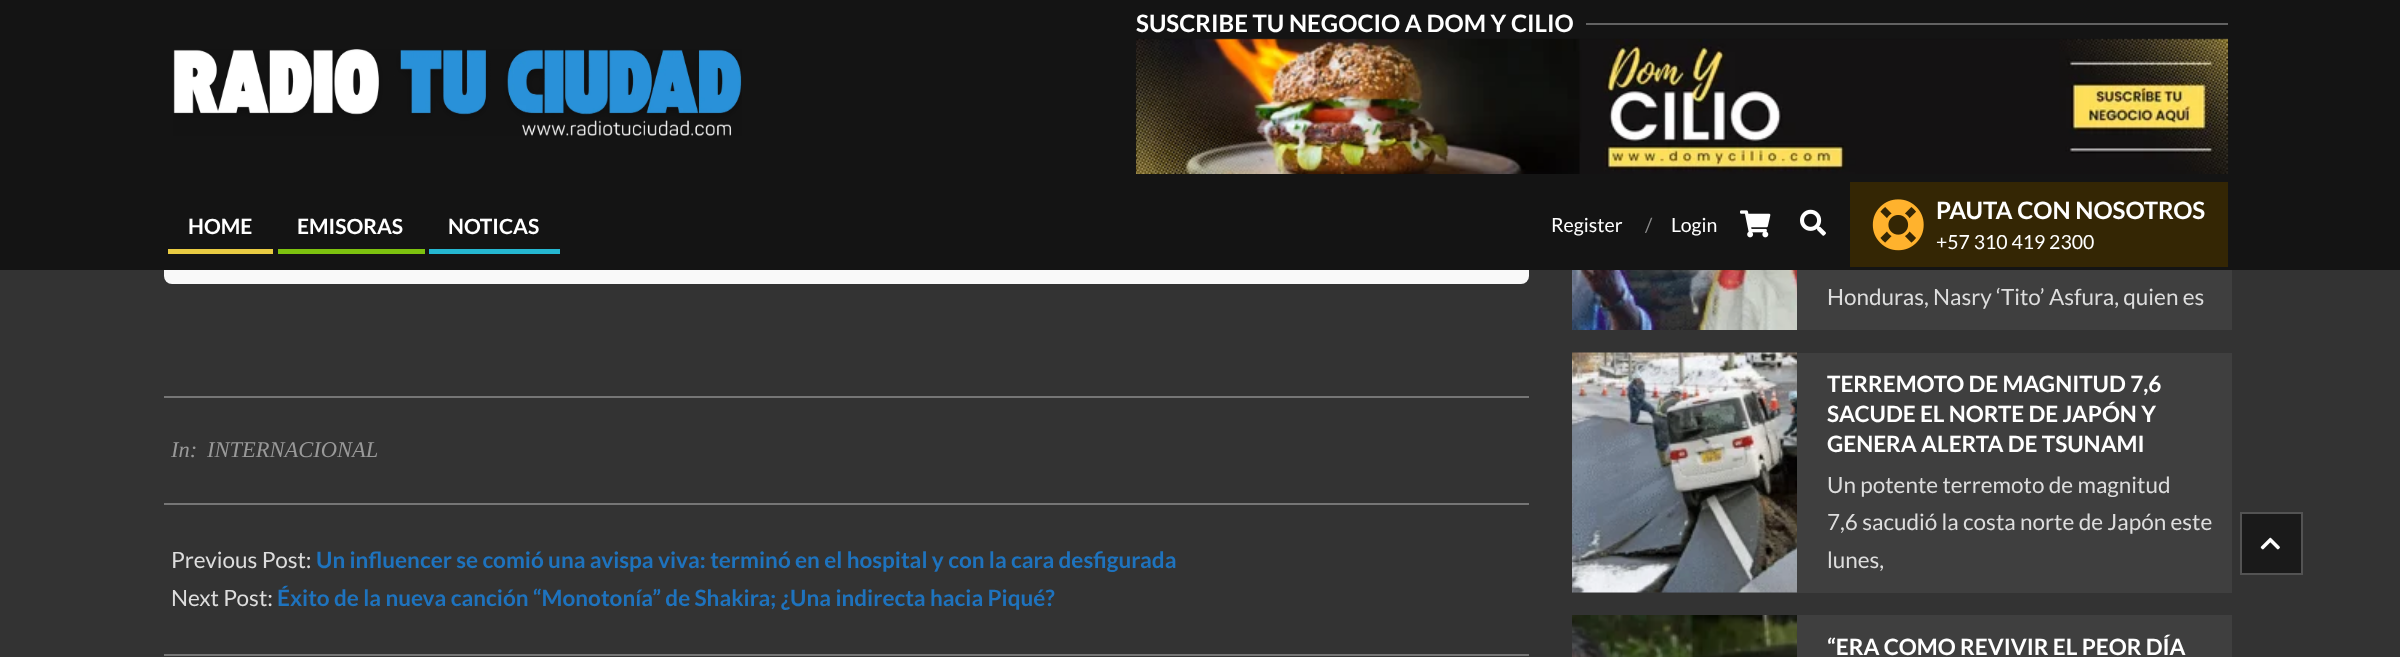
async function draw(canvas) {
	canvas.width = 2400;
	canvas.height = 657;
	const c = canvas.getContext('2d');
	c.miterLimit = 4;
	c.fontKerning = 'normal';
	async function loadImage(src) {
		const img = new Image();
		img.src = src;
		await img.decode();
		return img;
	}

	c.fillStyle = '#333';
	c.fillRect(0, 0, 2400, 657);
	c.fillStyle = '#f9f9f9';
	c.beginPath();
	c.roundRect(164, 125, 1365, 159, 8);
	c.fill();
	c.fillStyle = '#141414';
	c.fillRect(0, 0, 2400, 270);
	c.font = 'bold 24px Lato';
	c.fillStyle = '#fff';
	c.fillText('SUSCRIBE TU NEGOCIO A DOM Y CILIO', 1136, 32);
	c.fillStyle = '#626262';
	c.fillRect(1586, 23, 642, 2);
	c.drawImage(await loadImage('img1.png'), 1136, 38, 1092, 136);
	c.drawImage(await loadImage('img2.png'), 173, 49, 569, 87);
	c.font = 'bold 21px Lato';
	c.fillStyle = '#fff';
	c.fillText('HOME', 188, 234);
	c.fillStyle = '#e9cb42';
	c.fillRect(168, 249, 105, 5);
	c.fillStyle = '#fff';
	c.fillText('EMISORAS', 297, 234);
	c.fillStyle = '#7dc20f';
	c.fillRect(278, 249, 147, 5);
	c.fillStyle = '#fff';
	c.fillText('NOTICAS', 448, 234);
	c.fillStyle = '#25b7d1';
	c.fillRect(429, 249, 131, 5);
	c.font = '19.5px Lato';
	c.fillStyle = '#fff';
	c.fillText('Register', 1551, 232);
	c.fillStyle = '#8a8a8a';
	c.fillText('/', 1645, 232);
	c.fillStyle = '#fff';
	c.fillText('Login', 1671, 232);
	c.drawImage(await loadImage('img3.png'), 1740, 210, 31, 28);
	c.drawImage(await loadImage('img4.png'), 1800, 209, 26, 27);
	c.fillStyle = '#342604';
	c.fillRect(1850, 182, 378, 85);
	c.drawImage(await loadImage('img5.png'), 1872, 199, 52, 52);
	c.font = 'bold 24px Lato';
	c.fillStyle = '#fff';
	c.fillText('PAUTA CON NOSOTROS', 1936, 219);
	c.font = '19.5px Lato';
	c.fillText('+57 310 419 2300', 1936, 249);
	c.fillStyle = '#767676';
	c.fillRect(164, 396, 1365, 2);
	c.fillRect(164, 503, 1365, 2);
	c.font = 'italic 22.5px Liberation Serif';
	c.fillStyle = '#999';
	c.fillText('In:', 171, 457);
	c.fillText('INTERNACIONAL', 207, 457);
	c.fillStyle = '#767676';
	c.fillRect(164, 654, 1365, 2);
	c.font = '22.5px Lato';
	c.fillStyle = '#ddd';
	c.fillText('Previous Post:', 171, 568);
	c.font = 'bold 22.5px Lato';
	c.fillStyle = '#1e73be';
	c.fillText('Un influencer se comió una avispa viva: terminó en el hospital y con la cara desfigurada', 316, 568);
	c.font = '22.5px Lato';
	c.fillStyle = '#ddd';
	c.fillText('Next Post:', 171, 606);
	c.font = 'bold 22.5px Lato';
	c.fillStyle = '#1e73be';
	c.fillText('Éxito de la nueva canción “Monotonía” de Shakira; ¿Una indirecta hacia Piqué?', 277, 606);
	c.fillStyle = '#3f3f3f';
	c.fillRect(1797, 270, 435, 60);
	c.drawImage(await loadImage('img6.png'), 1572, 270, 225, 60);
	c.font = '22.5px Lato';
	c.fillStyle = '#ddd';
	c.fillText('Honduras, Nasry ‘Tito’ Asfura, quien es', 1827, 305);
	c.fillStyle = '#3f3f3f';
	c.fillRect(1797, 353, 435, 240);
	c.fillStyle = '#393939';
	c.fillRect(1572, 592, 225, 1);
	c.drawImage(await loadImage('img7.png'), 1572, 352, 225, 241);
	c.font = 'bold 22.5px Lato';
	c.fillStyle = '#fff';
	for (const [text, x, y] of [
		['TERREMOTO DE MAGNITUD 7,6', 1827, 392],
		['SACUDE EL NORTE DE JAPÓN Y', 1827, 422],
		['GENERA ALERTA DE TSUNAMI', 1827, 452],
	]) {
		c.fillText(text, x, y);
	}
	c.font = '22.5px Lato';
	c.fillStyle = '#ddd';
	for (const [text, x, y] of [
		['Un potente terremoto de magnitud', 1827, 493],
		['7,6 sacudió la costa norte de Japón este', 1827, 530],
		['lunes,', 1827, 568],
	]) {
		c.fillText(text, x, y);
	}
	c.fillStyle = '#3f3f3f';
	c.fillRect(1797, 615, 435, 42);
	c.drawImage(await loadImage('img8.png'), 1572, 615, 225, 42);
	c.font = 'bold 22.5px Lato';
	c.fillStyle = '#fff';
	c.fillText('“ERA COMO REVIVIR EL PEOR DÍA', 1827, 655);
	c.fillStyle = '#1a1a1a';
	c.beginPath();
	c.rect(2241, 513, 61, 61);
	c.fill();
	c.strokeStyle = '#535353';
	c.lineWidth = 2;
	c.stroke();
	c.drawImage(await loadImage('img9.png'), 2260, 537, 20, 13);
}

draw(document.querySelector('canvas'));
